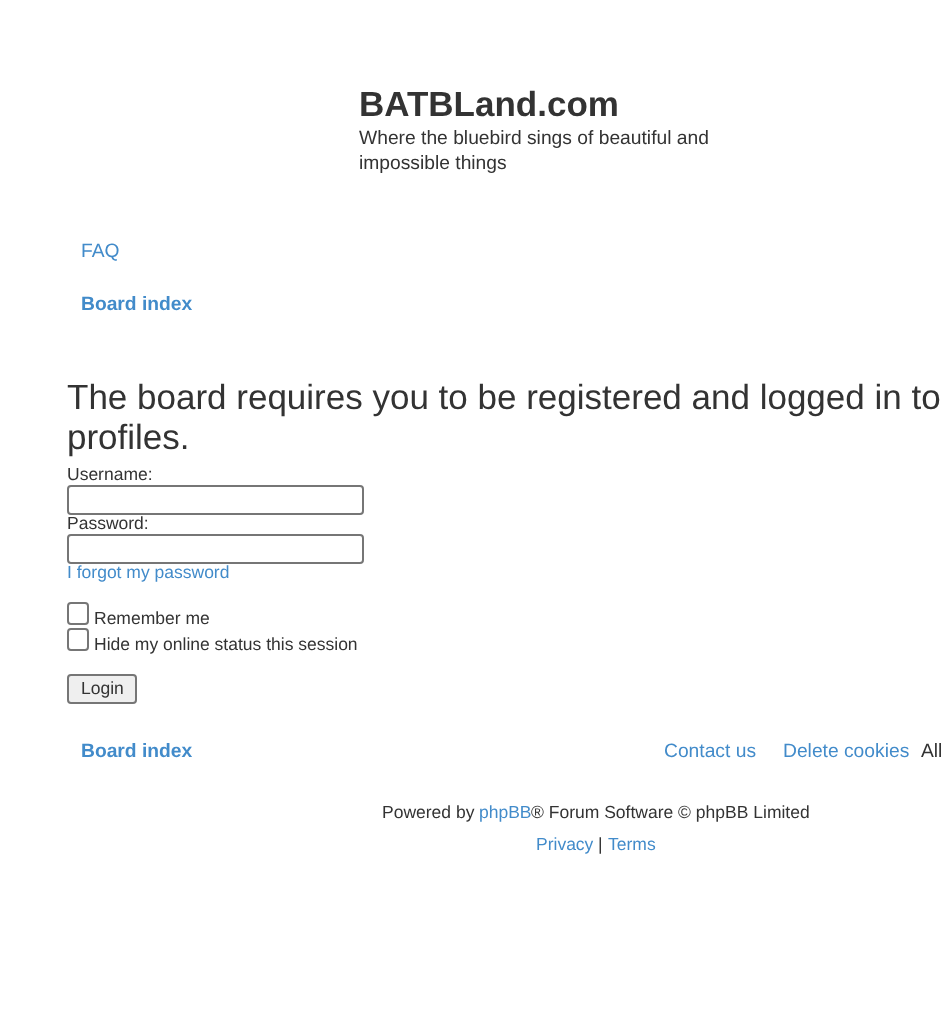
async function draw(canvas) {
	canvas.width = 942;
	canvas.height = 1027;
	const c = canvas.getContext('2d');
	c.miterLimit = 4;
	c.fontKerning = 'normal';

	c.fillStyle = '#fff';
	c.fillRect(0, 0, 942, 1027);
	c.font = 'bold 35px Liberation Sans';
	c.fillStyle = '#333';
	c.fillText('BATBLand.com', 359, 116);
	c.font = '19.25px Liberation Sans';
	c.fillText('Where the bluebird sings of beautiful and', 359, 144);
	c.fillText('impossible things', 359, 169);
	c.fillStyle = '#428bca';
	c.fillText('FAQ', 81, 257);
	c.font = 'bold 19.25px Liberation Sans';
	c.fillText('Board index', 81, 310);
	c.font = '35px Liberation Sans';
	c.fillStyle = '#333';
	c.fillText('The board requires you to be registered and logged in to', 67, 409);
	c.fillText('profiles.', 67, 449);
	c.font = '17.5px Liberation Sans';
	c.fillText('Username:', 67, 480);
	c.beginPath();
	c.roundRect(68, 486, 295, 28, 3);
	c.strokeStyle = '#767676';
	c.lineWidth = 2;
	c.stroke();
	c.fillText('Password:', 67, 529);
	c.beginPath();
	c.roundRect(68, 535, 295, 28, 3);
	c.stroke();
	c.fillStyle = '#428bca';
	c.fillText('I forgot my password', 67, 578);
	c.beginPath();
	c.roundRect(68, 603, 20, 21, 3);
	c.stroke();
	c.fillStyle = '#333';
	c.fillText('Remember me', 94, 624);
	c.beginPath();
	c.roundRect(68, 629, 20, 21, 3);
	c.stroke();
	c.fillText('Hide my online status this session', 94, 650);
	c.fillStyle = '#efefef';
	c.beginPath();
	c.roundRect(68, 675, 68, 28, 3);
	c.fill();
	c.stroke();
	c.fillStyle = '#333';
	c.fillText('Login', 81, 694);
	c.font = 'bold 19.25px Liberation Sans';
	c.fillStyle = '#428bca';
	c.fillText('Board index', 81, 757);
	c.font = '19.25px Liberation Sans';
	c.fillText('Contact us', 664, 757);
	c.fillText('Delete cookies', 783, 757);
	c.fillStyle = '#333';
	c.fillText('All', 921, 757);
	c.font = '17.5px Liberation Sans';
	c.fillText('Powered by', 382, 818);
	c.fillStyle = '#428bca';
	c.fillText('phpBB', 479, 818);
	c.fillStyle = '#333';
	c.fillText('® Forum Software © phpBB Limited', 531, 818);
	c.fillStyle = '#428bca';
	c.fillText('Privacy', 536, 850);
	c.fillStyle = '#333';
	c.fillText('|', 598, 850);
	c.fillStyle = '#428bca';
	c.fillText('Terms', 608, 850);
}

draw(document.querySelector('canvas'));
